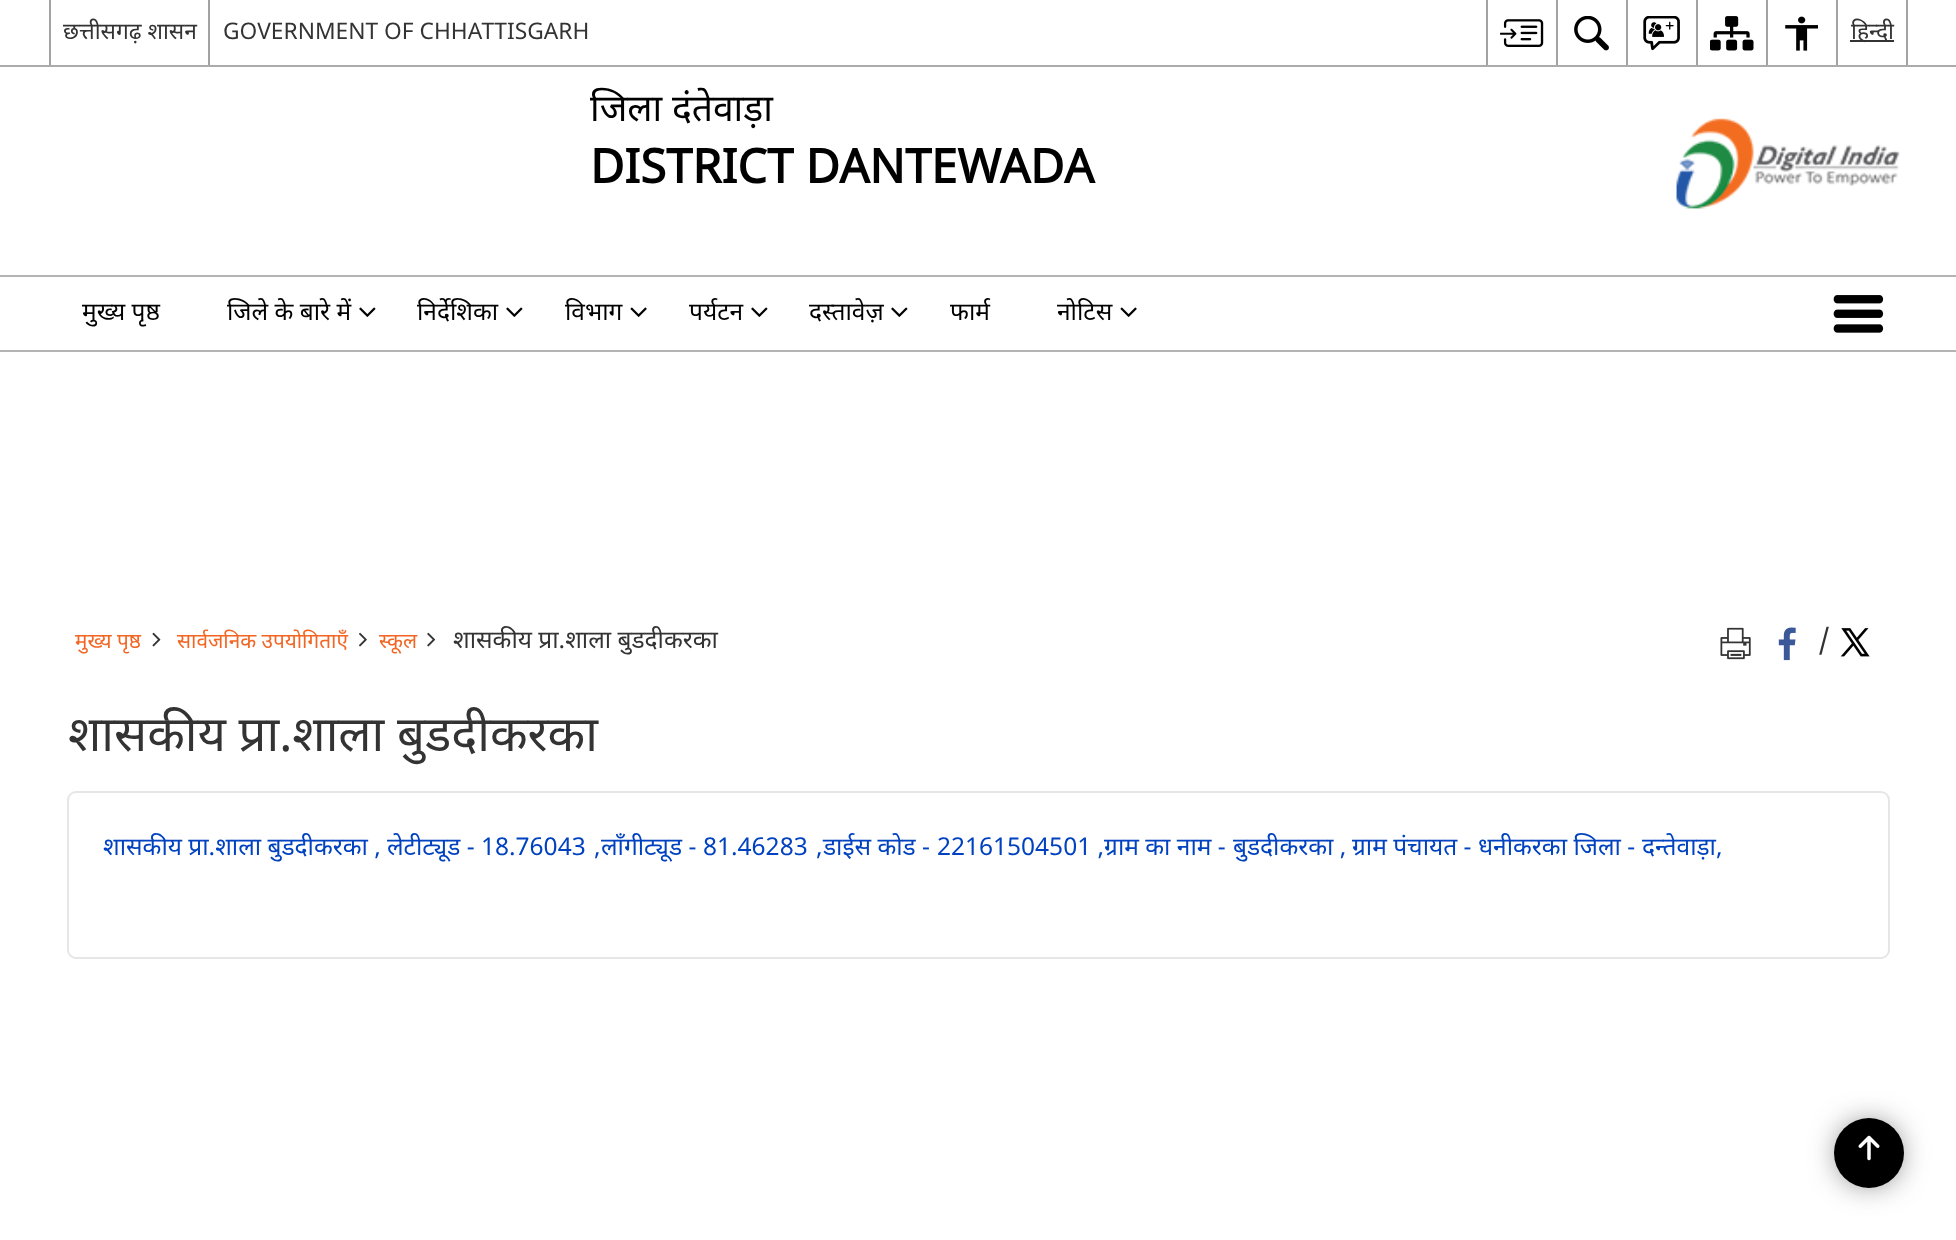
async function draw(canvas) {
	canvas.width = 1956;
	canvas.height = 1240;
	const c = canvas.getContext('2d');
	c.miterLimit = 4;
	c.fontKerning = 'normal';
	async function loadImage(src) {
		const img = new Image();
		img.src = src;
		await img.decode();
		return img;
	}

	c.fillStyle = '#fff';
	c.fillRect(0, 0, 1956, 1240);
	c.fillStyle = '#ababab';
	c.fillRect(0, 65, 1956, 2);
	c.fillStyle = '#a3a3a3';
	c.fillRect(49, 0, 2, 65);
	c.font = '22.75px Noto Sans';
	c.fillStyle = '#333';
	c.fillText('छत्तीसगढ़ शासन', 63, 39);
	c.fillStyle = '#a3a3a3';
	c.fillRect(208, 0, 2, 65);
	c.font = '22.75px "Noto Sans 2"';
	c.fillStyle = '#333';
	c.fillText('GOVERNMENT OF CHHATTISGARH', 223, 39);
	c.fillStyle = '#a3a3a3';
	c.fillRect(1486, 0, 2, 65);
	c.drawImage(await loadImage('img1.png'), 1500, 19, 44, 28);
	c.fillRect(1556, 0, 2, 65);
	c.drawImage(await loadImage('img2.png'), 1574, 16, 35, 35);
	c.fillRect(1626, 0, 2, 65);
	c.drawImage(await loadImage('img3.png'), 1643, 16, 37, 35);
	c.fillRect(1696, 0, 2, 65);
	c.drawImage(await loadImage('img4.png'), 1710, 16, 44, 35);
	c.fillRect(1766, 0, 2, 65);
	c.drawImage(await loadImage('img5.png'), 1785, 16, 33, 35);
	for (const [x, y, w, h, color] of [
		[1906, 0, 2, 65, '#a3a3a3'],
		[1836, 0, 2, 65, '#a3a3a3'],
		[1850, 40, 44, 2, '#333'],
	]) {
		c.fillStyle = color;
		c.fillRect(x, y, w, h);
	}
	c.font = '22.75px Noto Sans';
	c.fillText('हिन्दी', 1851, 39);
	c.font = '37.25px Noto Sans';
	c.fillStyle = '#000';
	c.fillText('जिला दंतेवाड़ा', 590, 121);
	c.font = 'bold 47px Noto Sans';
	c.fillText('DISTRICT DANTEWADA', 590, 183);
	c.drawImage(await loadImage('img6.png'), 1676, 118, 224, 91);
	c.fillStyle = '#b3b3b3';
	c.fillRect(0, 275, 1956, 2);
	c.fillRect(0, 350, 1956, 2);
	c.font = '24.5px Noto Sans';
	c.fillStyle = '#000';
	c.fillText('मुख्य पृष्ठ', 82, 320);
	c.fillText('जिले के बारे में', 227, 320);
	c.drawImage(await loadImage('img7.png'), 359, 307, 17, 10);
	c.fillText('निर्देशिका', 417, 320);
	c.drawImage(await loadImage('img7.png'), 506, 307, 17, 10);
	c.fillText('विभाग', 565, 320);
	c.drawImage(await loadImage('img8.png'), 630, 307, 17, 10);
	c.fillText('पर्यटन', 689, 320);
	c.drawImage(await loadImage('img7.png'), 751, 307, 17, 10);
	c.fillText('दस्तावेज़', 809, 320);
	c.drawImage(await loadImage('img7.png'), 891, 307, 17, 10);
	c.fillText('फार्म', 950, 320);
	c.fillText('नोटिस', 1057, 320);
	c.drawImage(await loadImage('img8.png'), 1120, 307, 17, 10);
	c.drawImage(await loadImage('img9.png'), 1833, 295, 51, 38);
	c.font = '20.75px Noto Sans';
	c.fillStyle = '#f26522';
	c.fillText('मुख्य पृष्ठ', 75, 648);
	c.drawImage(await loadImage('img10.png'), 152, 632, 9, 15);
	c.fillText('सार्वजनिक उपयोगिताएँ', 177, 648);
	c.drawImage(await loadImage('img11.png'), 359, 632, 8, 15);
	c.fillText('स्कूल', 379, 648);
	c.drawImage(await loadImage('img12.png'), 427, 632, 9, 15);
	c.font = '24.5px Noto Sans';
	c.fillStyle = '#333';
	c.fillText('शासकीय प्रा.शाला बुडदीकरका', 453, 648);
	c.drawImage(await loadImage('img13.png'), 1720, 627, 31, 33);
	c.drawImage(await loadImage('img14.png'), 1778, 627, 18, 34);
	c.font = '28px "Noto Sans 2"';
	c.fillText('/', 1818, 650);
	c.drawImage(await loadImage('img15.png'), 1840, 628, 30, 29);
	c.font = '49px Noto Sans';
	c.fillText('शासकीय प्रा.शाला बुडदीकरका', 68, 751);
	c.beginPath();
	c.roundRect(68, 792, 1821, 166, 8);
	c.strokeStyle = '#e6e6e6';
	c.lineWidth = 2;
	c.stroke();
	c.font = '24.5px Noto Sans';
	c.fillStyle = '#0042bf';
	c.fillText('शासकीय प्रा.शाला बुडदीकरका ,', 103, 855);
	c.fillText('लेटीट्यूड -', 387, 855);
	c.wordSpacing = '2px';
	c.fillText('18.76043 ,', 481, 855);
	c.wordSpacing = '0px';
	c.fillText('लॉंगीट्यूड -', 601, 855);
	c.wordSpacing = '2px';
	c.fillText('81.46283 ,', 703, 855);
	c.wordSpacing = '0px';
	for (const [text, x, y] of [
		['डाईस कोड -', 823, 855],
		['22161504501 ,ग्राम का नाम -', 937, 855],
		['बुडदीकरका ,', 1233, 855],
		['ग्राम पंचायत -', 1352, 855],
		['धनीकरका जिला -', 1478, 855],
		['दन्‍तेवाड़ा,', 1642, 855],
	]) {
		c.fillText(text, x, y);
	}
	c.fillStyle = '#3c3c3c';
	c.filter = 'blur(16.5px)';
	c.beginPath();
	c.roundRect(1843, 1127, 52, 53, 26);
	c.fill();
	c.filter = 'none';
	c.fillStyle = '#000';
	c.beginPath();
	c.arc(1869, 1153, 35, 0, 2 * Math.PI);
	c.fill();
	c.drawImage(await loadImage('img16.png'), 1858, 1135, 22, 26);
}

draw(document.querySelector('canvas'));
